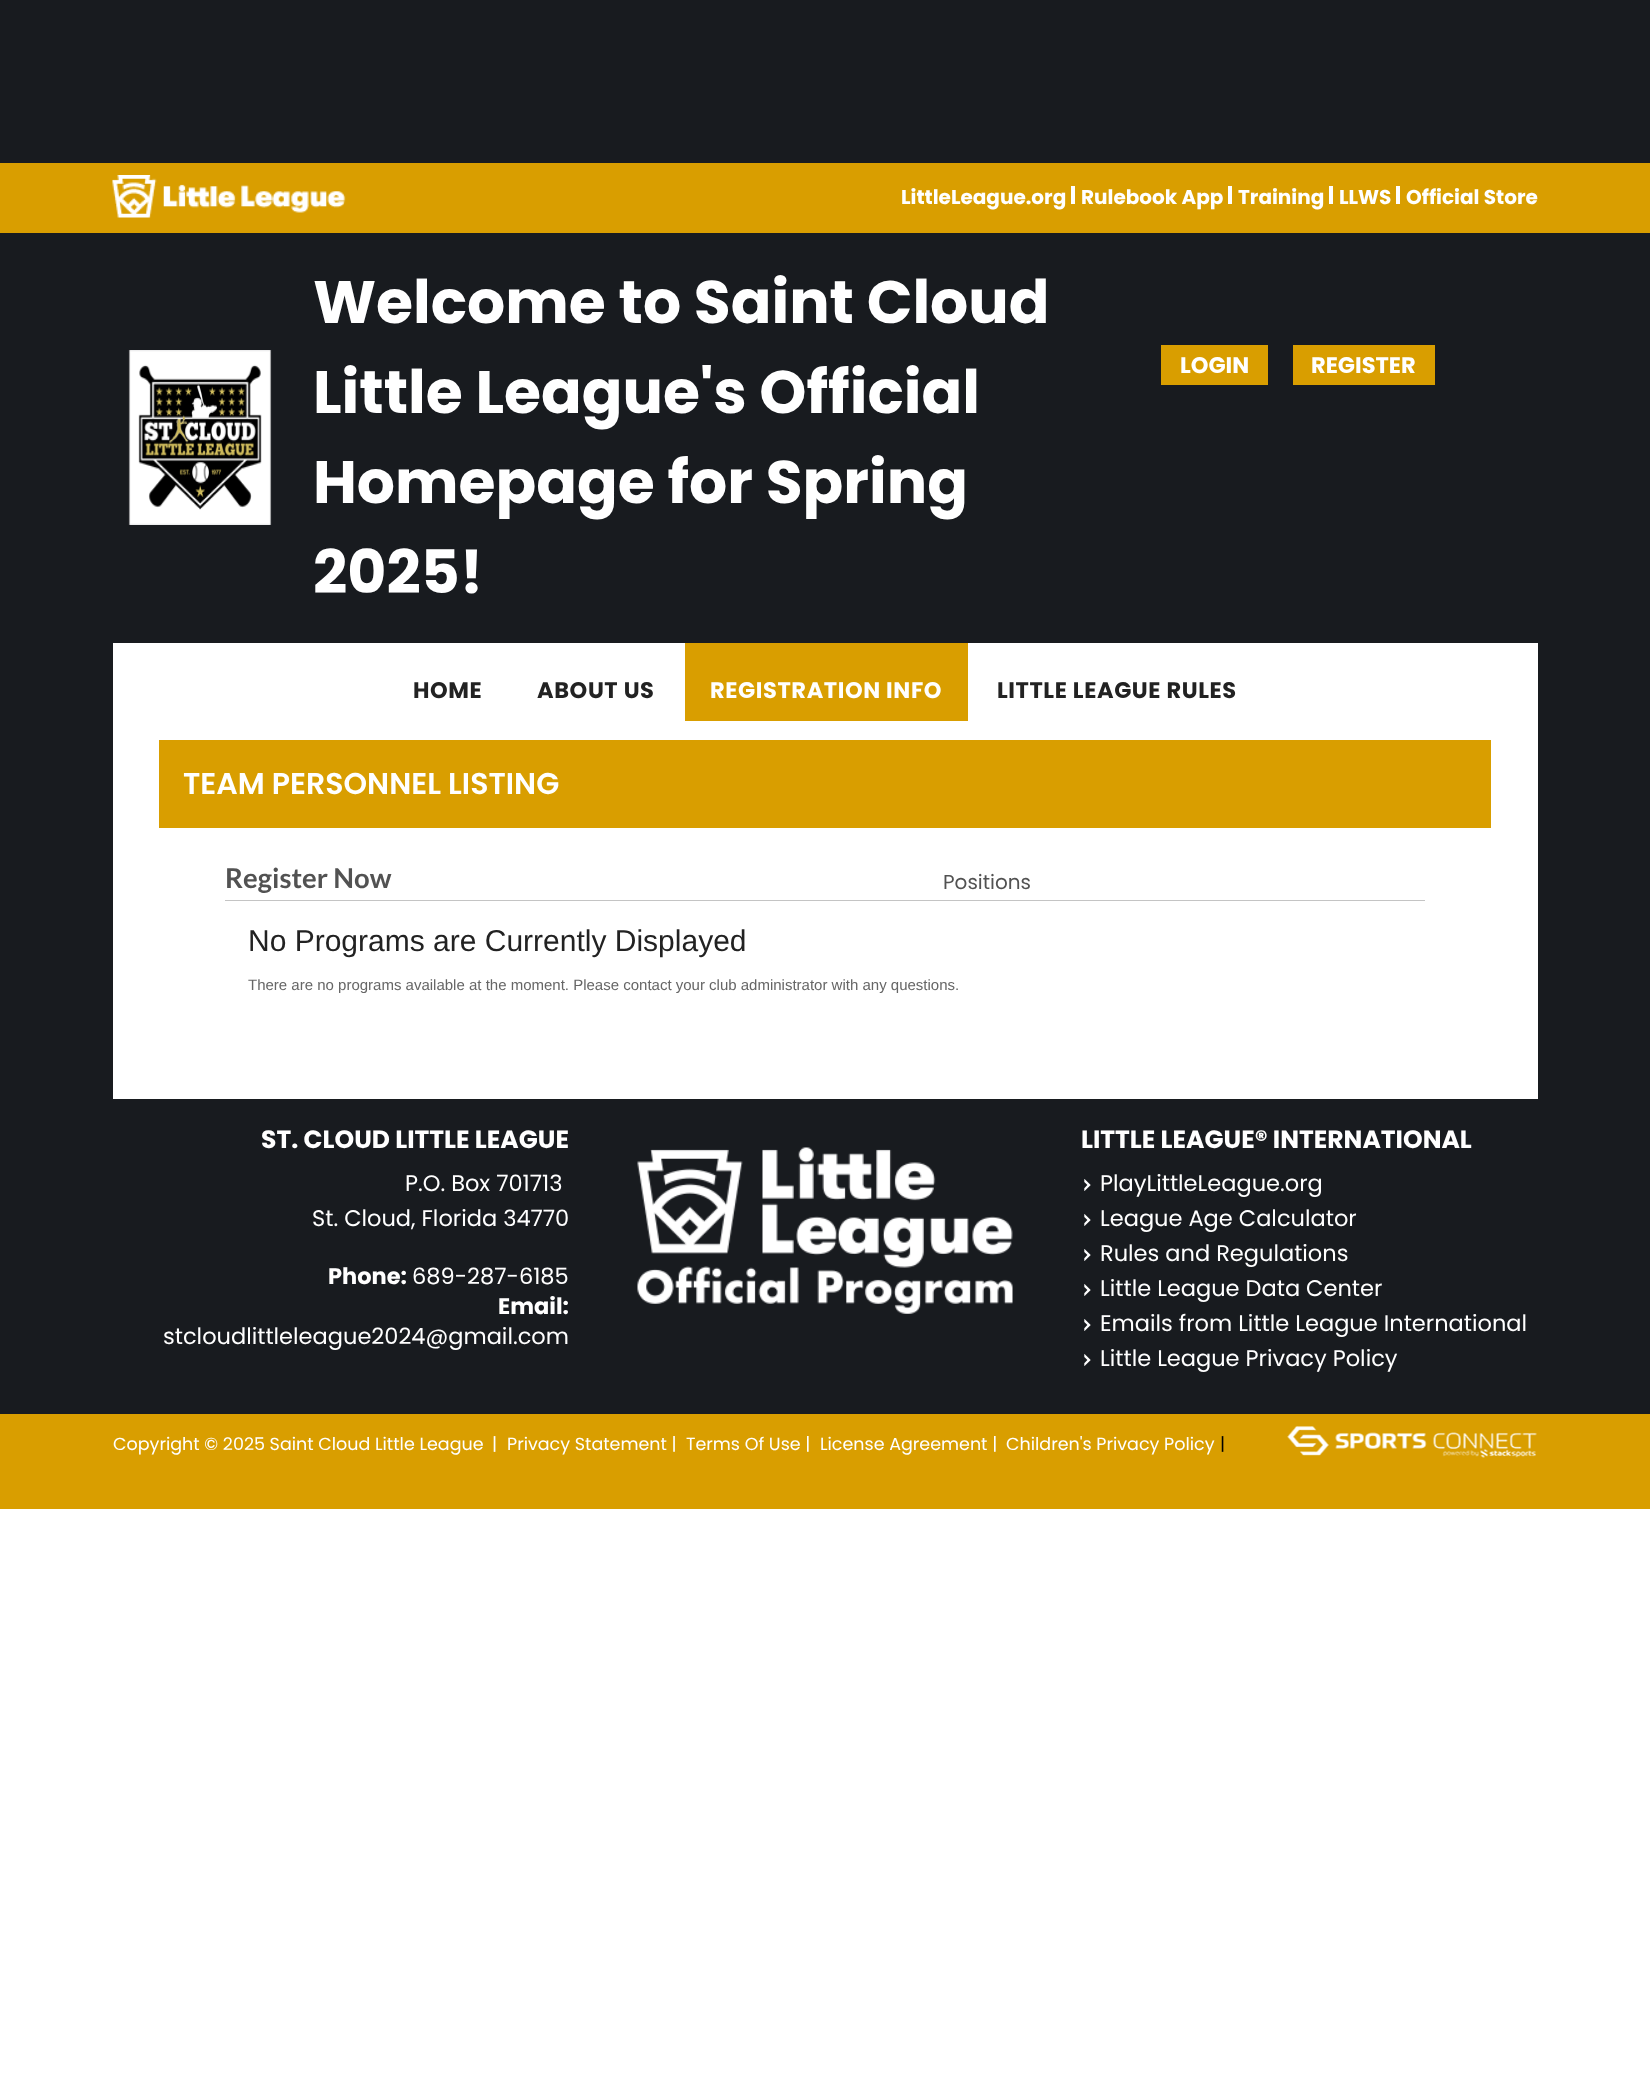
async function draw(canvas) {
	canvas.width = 1650;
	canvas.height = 2076;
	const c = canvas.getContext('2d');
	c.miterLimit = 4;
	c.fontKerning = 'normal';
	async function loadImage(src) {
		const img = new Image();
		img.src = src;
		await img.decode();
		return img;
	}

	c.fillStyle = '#fff';
	c.fillRect(0, 0, 1650, 2076);
	c.fillStyle = '#181b1f';
	c.fillRect(0, 0, 1650, 1414);
	c.fillStyle = '#d99e00';
	c.fillRect(0, 163, 1650, 70);
	c.drawImage(await loadImage('img1.png'), 112, 175, 234, 43);
	c.font = 'bold 20px Poppins';
	c.fillStyle = '#fff';
	c.fillText('LittleLeague.org', 901, 204);
	c.fillRect(1071, 186, 4, 18);
	c.fillText('Rulebook App', 1081, 204);
	c.fillRect(1228, 186, 4, 18);
	c.fillText('Training', 1238, 204);
	c.fillRect(1329, 186, 4, 18);
	c.fillText('LLWS', 1339, 204);
	c.fillRect(1396, 186, 4, 18);
	c.fillText('Official Store', 1406, 204);
	c.drawImage(await loadImage('img2.png'), 128, 350, 144, 175);
	c.font = 'bold 60px Poppins';
	for (const [text, x, y] of [
		['Welcome to Saint Cloud', 313, 323],
		['Little League\'s Official', 313, 413],
		['Homepage for Spring', 313, 503],
		['2025!', 313, 593],
	]) {
		c.fillText(text, x, y);
	}
	c.fillStyle = '#d99e00';
	c.fillRect(1161, 345, 107, 40);
	c.font = 'bold 22.5px Poppins';
	c.fillStyle = '#fff';
	c.fillText('LOGIN', 1180, 373);
	c.fillStyle = '#d99e00';
	c.fillRect(1293, 345, 142, 40);
	c.fillStyle = '#fff';
	c.fillText('REGISTER', 1311, 373);
	c.fillRect(113, 643, 1425, 456);
	c.letterSpacing = '0.6px';
	c.fillStyle = '#222';
	c.fillText('HOME', 413, 698);
	c.fillText('ABOUT US', 537, 698);
	c.fillStyle = '#d99e00';
	c.fillRect(685, 643, 283, 78);
	c.fillStyle = '#fff';
	c.fillText('REGISTRATION INFO', 710, 698);
	c.fillStyle = '#222';
	c.fillText('LITTLE LEAGUE RULES', 997, 698);
	c.fillStyle = '#d99e00';
	c.fillRect(159, 740, 1332, 88);
	c.letterSpacing = '0px';
	c.font = '600 30px Poppins';
	c.fillStyle = '#fff';
	c.fillText('TEAM PERSONNEL LISTING', 183, 794);
	c.font = 'bold 27.5px Lato';
	c.fillStyle = '#525252';
	c.fillText('Register Now', 225, 888);
	c.font = '20px Poppins';
	c.fillText('Positions', 943, 889);
	c.fillStyle = '#c4c4c4';
	c.fillRect(225, 900, 1200, 1);
	c.font = '30px Liberation Sans';
	c.fillStyle = '#222';
	c.fillText('No Programs are Currently Displayed', 248, 951);
	c.font = '15px Liberation Sans';
	c.fillStyle = '#666';
	c.fillText('There are no programs available at the moment. Please contact your club administrator with any questions.', 248, 990);
	c.font = 'bold 25px Poppins';
	c.fillStyle = '#fff';
	c.fillText('ST. CLOUD LITTLE LEAGUE', 261, 1148);
	c.font = '22.5px Poppins';
	c.fillText('P.O. Box 701713', 405, 1191);
	c.fillText('St. Cloud, Florida 34770', 312, 1226);
	c.font = 'bold 22.5px Poppins';
	c.fillText('Phone:', 328, 1284);
	c.font = '22.5px Poppins';
	c.fillText('689-287-6185', 412, 1284);
	c.font = 'bold 22.5px Poppins';
	c.fillText('Email:', 498, 1314);
	c.font = '22.5px Poppins';
	c.fillText('stcloudlittleleague2024@gmail.com', 163, 1344);
	c.drawImage(await loadImage('img3.png'), 637, 1147, 376, 167);
	c.font = 'bold 25px Poppins';
	c.fillText('LITTLE LEAGUE® INTERNATIONAL', 1081, 1148);
	c.drawImage(await loadImage('img4.png'), 1084, 1179, 7, 12);
	c.font = '22.5px Poppins';
	c.fillText('PlayLittleLeague.org', 1100, 1191);
	c.drawImage(await loadImage('img4.png'), 1084, 1214, 7, 12);
	c.fillText('League Age Calculator', 1100, 1226);
	c.drawImage(await loadImage('img4.png'), 1084, 1249, 7, 12);
	c.fillText('Rules and Regulations', 1100, 1261);
	c.drawImage(await loadImage('img4.png'), 1084, 1284, 7, 12);
	c.fillText('Little League Data Center', 1100, 1296);
	c.drawImage(await loadImage('img4.png'), 1084, 1319, 7, 12);
	c.fillText('Emails from Little League International', 1100, 1331);
	c.drawImage(await loadImage('img4.png'), 1084, 1354, 7, 12);
	c.fillText('Little League Privacy Policy', 1100, 1366);
	c.fillStyle = '#d99e00';
	c.fillRect(0, 1414, 1650, 95);
	c.font = '17.5px Poppins';
	c.fillStyle = '#fff';
	for (const [text, x, y] of [
		['Copyright © 2025 Saint Cloud Little League', 113, 1450],
		['|', 492, 1450],
		['Privacy Statement |', 507, 1450],
		['Terms Of Use |', 686, 1450],
		['License Agreement |', 820, 1450],
		['Children\'s Privacy Policy', 1006, 1450],
	]) {
		c.fillText(text, x, y);
	}
	c.fillStyle = '#000';
	c.fillText('|', 1220, 1450);
	c.drawImage(await loadImage('img5.png'), 1287, 1426, 250, 32);
}

draw(document.querySelector('canvas'));
